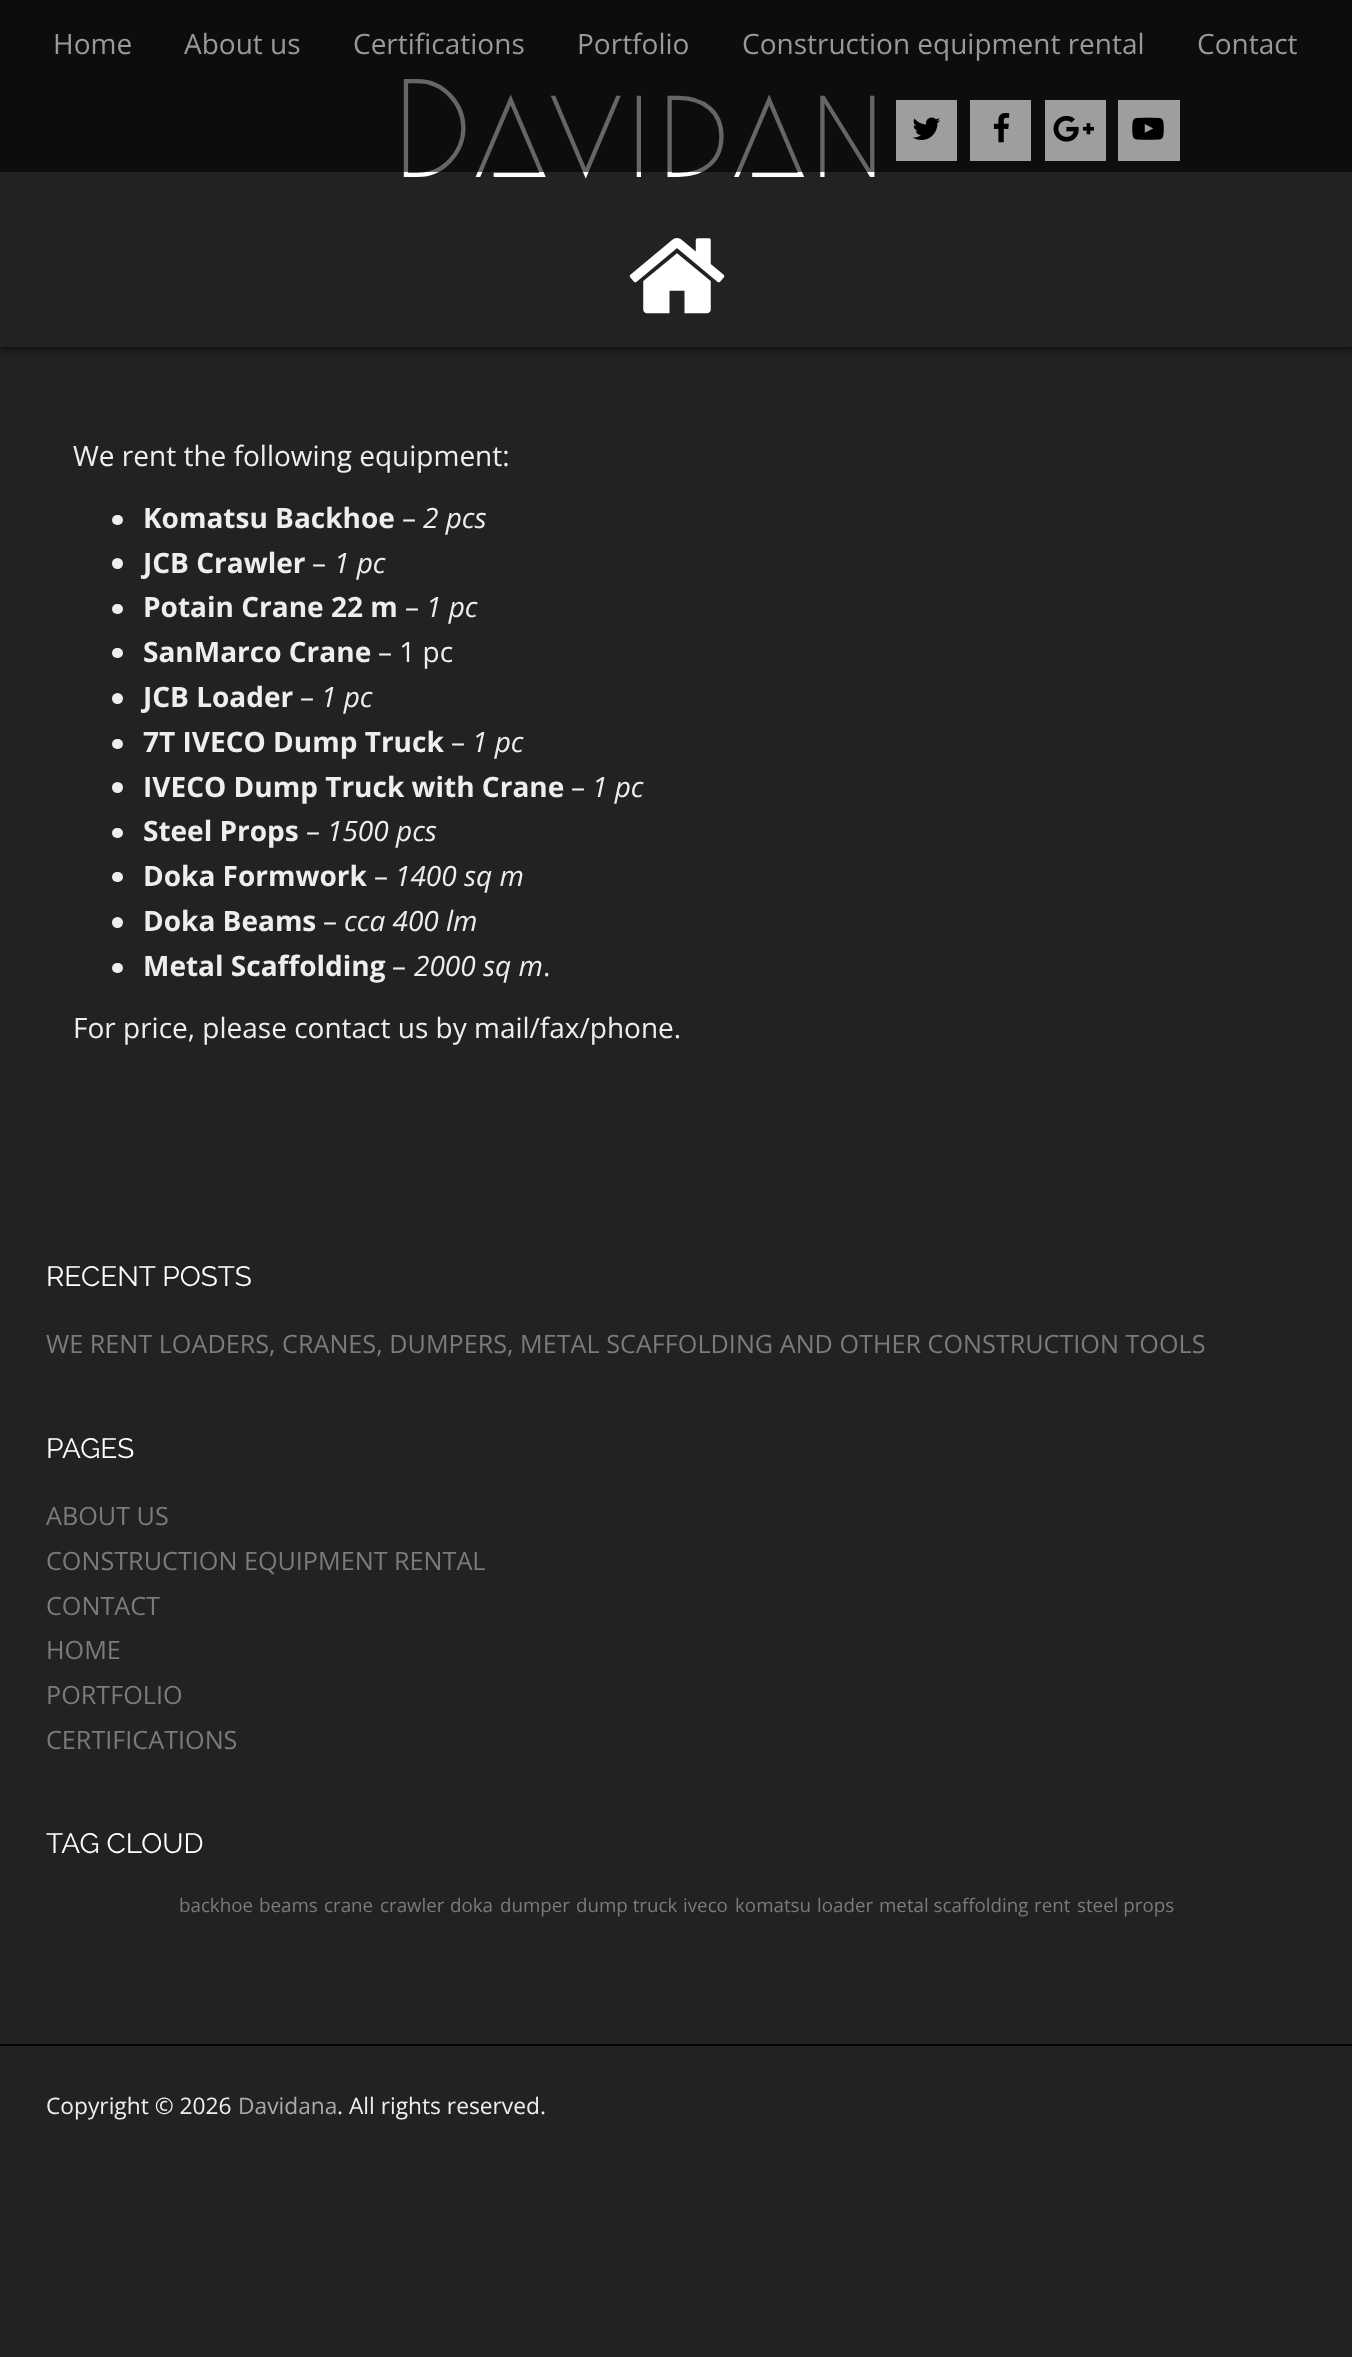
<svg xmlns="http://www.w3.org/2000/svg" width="1352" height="2357">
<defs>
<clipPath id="clip1"><path d="M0 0h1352v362h-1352zm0 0h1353v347h-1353z" clip-rule="evenodd"/></clipPath>
</defs>
<rect width="100%" height="100%" fill="#222"/>
<g clip-path="url(#clip1)">
<rect width="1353" height="347" fill="#000" filter="blur(4.5px)"/>
</g>
<text x="390" y="177" style="font-family:Megrim;font-size:140px;font-weight:500;fill:#fff">Davidan</text>
<rect width="1352" height="172" fill="#00000099"/>
<text x="53" y="54" style="font-family:Open Sans;font-size:28px;fill:#999">Home</text>
<text x="184" y="54" style="font-family:Open Sans;font-size:28px;fill:#999">About us</text>
<text x="353" y="54" style="font-family:Open Sans;font-size:28px;fill:#999">Certifications</text>
<text x="577" y="54" style="font-family:Open Sans;font-size:28px;fill:#999">Portfolio</text>
<text x="742" y="54" style="font-family:Open Sans;font-size:28px;fill:#999">Construction equipment rental</text>
<text x="1197" y="54" style="font-family:Open Sans;font-size:28px;fill:#999">Contact</text>
<rect x="896" y="100" width="61" height="61" fill="#ffffff99"/>
<image x="912" y="117" width="28" height="23" href="media/1.png"/>
<rect x="970" y="100" width="61" height="61" fill="#9e9e9e"/>
<image x="993" y="113" width="17" height="30" href="media/2.png"/>
<rect x="1045" y="100" width="61" height="61" fill="#9e9e9e"/>
<image x="1053" y="115" width="41" height="27" href="media/3.png"/>
<rect x="1118" y="100" width="62" height="61" fill="#9e9e9e"/>
<image x="1132" y="117" width="32" height="23" href="media/4.png"/>
<image x="629" y="238" width="96" height="76" href="media/5.png"/>
<text x="73" y="466" style="font-family:Open Sans;font-size:28px;fill:#eee">We rent the following equipment:</text>
<rect x="112" y="515" width="11" height="10" rx="5" fill="#eee"/>
<text x="143" y="528" style="font-family:Open Sans;font-size:28px;font-weight:bold;fill:#eee">Komatsu Backhoe</text>
<text x="402" y="528" style="font-family:Open Sans;font-size:28px;fill:#eee">–</text>
<text x="423" y="528" style="font-family:Open Sans;font-size:28px;font-style:italic;fill:#eee">2 pcs</text>
<circle cx="117.5" cy="563.5" r="5.5" fill="#eee"/>
<text x="143" y="573" style="font-family:Open Sans;font-size:28px;font-weight:bold;fill:#eee">JCB Crawler</text>
<text x="312" y="573" style="font-family:Open Sans;font-size:28px;fill:#eee">–</text>
<text x="334" y="573" style="font-family:Open Sans;font-size:28px;font-style:italic;fill:#eee">1 pc</text>
<rect x="112" y="604" width="11" height="10" rx="5" fill="#eee"/>
<text x="143" y="617" style="font-family:Open Sans;font-size:28px;font-weight:bold;fill:#eee">Potain Crane 22 m</text>
<text x="405" y="617" style="font-family:Open Sans;font-size:28px;fill:#eee">–</text>
<text x="426" y="617" style="font-family:Open Sans;font-size:28px;font-style:italic;fill:#eee">1 pc</text>
<rect x="112" y="648" width="11" height="10" rx="5" fill="#eee"/>
<text x="143" y="662" style="font-family:Open Sans;font-size:28px;font-weight:bold;fill:#eee">SanMarco Crane</text>
<text x="378" y="662" style="font-family:Open Sans;font-size:28px;fill:#eee">– 1 pc</text>
<circle cx="117.5" cy="698.5" r="5.5" fill="#eee"/>
<text x="143" y="707" style="font-family:Open Sans;font-size:28px;font-weight:bold;fill:#eee">JCB Loader</text>
<text x="300" y="707" style="font-family:Open Sans;font-size:28px;fill:#eee">–</text>
<text x="321" y="707" style="font-family:Open Sans;font-size:28px;font-style:italic;fill:#eee">1 pc</text>
<rect x="112" y="739" width="11" height="10" rx="5" fill="#eee"/>
<text x="143" y="752" style="font-family:Open Sans;font-size:28px;font-weight:bold;fill:#eee">7T IVECO Dump Truck</text>
<text x="451" y="752" style="font-family:Open Sans;font-size:28px;fill:#eee">–</text>
<text x="472" y="752" style="font-family:Open Sans;font-size:28px;font-style:italic;fill:#eee">1 pc</text>
<circle cx="117.5" cy="787.5" r="5.5" fill="#eee"/>
<text x="143" y="797" style="font-family:Open Sans;font-size:28px;font-weight:bold;fill:#eee">IVECO Dump Truck with Crane</text>
<text x="571" y="797" style="font-family:Open Sans;font-size:28px;fill:#eee">–</text>
<text x="592" y="797" style="font-family:Open Sans;font-size:28px;font-style:italic;fill:#eee">1 pc</text>
<rect x="112" y="828" width="11" height="10" rx="5" fill="#eee"/>
<text x="143" y="841" style="font-family:Open Sans;font-size:28px;font-weight:bold;fill:#eee">Steel Props</text>
<text x="306" y="841" style="font-family:Open Sans;font-size:28px;fill:#eee">–</text>
<text x="327" y="841" style="font-family:Open Sans;font-size:28px;font-style:italic;fill:#eee">1500 pcs</text>
<rect x="112" y="872" width="11" height="10" rx="5" fill="#eee"/>
<text x="143" y="886" style="font-family:Open Sans;font-size:28px;font-weight:bold;fill:#eee">Doka Formwork</text>
<text x="374" y="886" style="font-family:Open Sans;font-size:28px;fill:#eee">–</text>
<text x="395" y="886" style="font-family:Open Sans;font-size:28px;font-style:italic;fill:#eee">1400 sq m</text>
<circle cx="117.5" cy="922.5" r="5.5" fill="#eee"/>
<text x="143" y="931" style="font-family:Open Sans;font-size:28px;font-weight:bold;fill:#eee">Doka Beams</text>
<text x="323" y="931" style="font-family:Open Sans;font-size:28px;fill:#eee">–</text>
<text x="344" y="931" style="font-family:Open Sans;font-size:28px;font-style:italic;fill:#eee">cca 400 lm</text>
<rect x="112" y="963" width="11" height="10" rx="5" fill="#eee"/>
<text x="143" y="976" style="font-family:Open Sans;font-size:28px;font-weight:bold;fill:#eee">Metal Scaffolding</text>
<text x="392" y="976" style="font-family:Open Sans;font-size:28px;fill:#eee">–</text>
<text x="414" y="976" style="font-family:Open Sans;font-size:28px;font-style:italic;fill:#eee">2000 sq m</text>
<text x="543" y="976" style="font-family:Open Sans;font-size:28px;fill:#eee">.</text>
<text x="73" y="1038" style="font-family:Open Sans;font-size:28px;fill:#eee">For price, please contact us by mail/fax/phone.</text>
<text x="46" y="1286" style="font-family:Raleway;font-size:28px;font-weight:100;fill:#fff">RECENT POSTS</text>
<text x="46" y="1353" style="font-family:Open Sans;font-size:25.2px;fill:#7b7b7b">WE RENT LOADERS, CRANES, DUMPERS, METAL SCAFFOLDING AND OTHER CONSTRUCTION TOOLS</text>
<text x="46" y="1458" style="font-family:Raleway;font-size:28px;font-weight:100;fill:#fff">PAGES</text>
<text x="46" y="1525" style="font-family:Open Sans;font-size:25.2px;fill:#7b7b7b">ABOUT US</text>
<text x="46" y="1570" style="font-family:Open Sans;font-size:25.2px;fill:#7b7b7b">CONSTRUCTION EQUIPMENT RENTAL</text>
<text x="46" y="1615" style="font-family:Open Sans;font-size:25.2px;fill:#7b7b7b">CONTACT</text>
<text x="46" y="1659" style="font-family:Open Sans;font-size:25.2px;fill:#7b7b7b">HOME</text>
<text x="46" y="1704" style="font-family:Open Sans;font-size:25.2px;fill:#7b7b7b">PORTFOLIO</text>
<text x="46" y="1749" style="font-family:Open Sans;font-size:25.2px;fill:#7b7b7b">CERTIFICATIONS</text>
<text x="46" y="1853" style="font-family:Raleway;font-size:28px;font-weight:100;fill:#fff">TAG CLOUD</text>
<text x="179" y="1912" style="font-family:Open Sans;font-size:18.75px;fill:#7b7b7b">backhoe</text>
<text x="259" y="1912" style="font-family:Open Sans;font-size:18.75px;fill:#7b7b7b">beams</text>
<text x="324" y="1912" style="font-family:Open Sans;font-size:18.75px;fill:#7b7b7b">crane</text>
<text x="380" y="1912" style="font-family:Open Sans;font-size:18.75px;fill:#7b7b7b">crawler</text>
<text x="450" y="1912" style="font-family:Open Sans;font-size:18.75px;fill:#7b7b7b">doka</text>
<text x="500" y="1912" style="font-family:Open Sans;font-size:18.75px;fill:#7b7b7b">dumper</text>
<text x="576" y="1912" style="font-family:Open Sans;font-size:18.75px;fill:#7b7b7b">dump truck</text>
<text x="683" y="1912" style="font-family:Open Sans;font-size:18.75px;fill:#7b7b7b">iveco</text>
<text x="735" y="1912" style="font-family:Open Sans;font-size:18.75px;fill:#7b7b7b">komatsu</text>
<text x="817" y="1912" style="font-family:Open Sans;font-size:18.75px;fill:#7b7b7b">loader</text>
<text x="879" y="1912" style="font-family:Open Sans;font-size:18.75px;fill:#7b7b7b">metal scaffolding</text>
<text x="1034" y="1912" style="font-family:Open Sans;font-size:18.75px;fill:#7b7b7b">rent</text>
<text x="1077" y="1912" style="font-family:Open Sans;font-size:18.75px;fill:#7b7b7b">steel props</text>
<rect y="2044" width="1352" height="2" fill="#000"/>
<text x="46" y="2114" style="font-family:Open Sans;font-size:22.75px;fill:#eee">Copyright © 2026</text>
<text x="238" y="2114" style="font-family:Open Sans;font-size:22.75px;fill:#aaa">Davidana</text>
<text x="337" y="2114" style="font-family:Open Sans;font-size:22.75px;fill:#eee">. All rights reserved.</text>
</svg>
